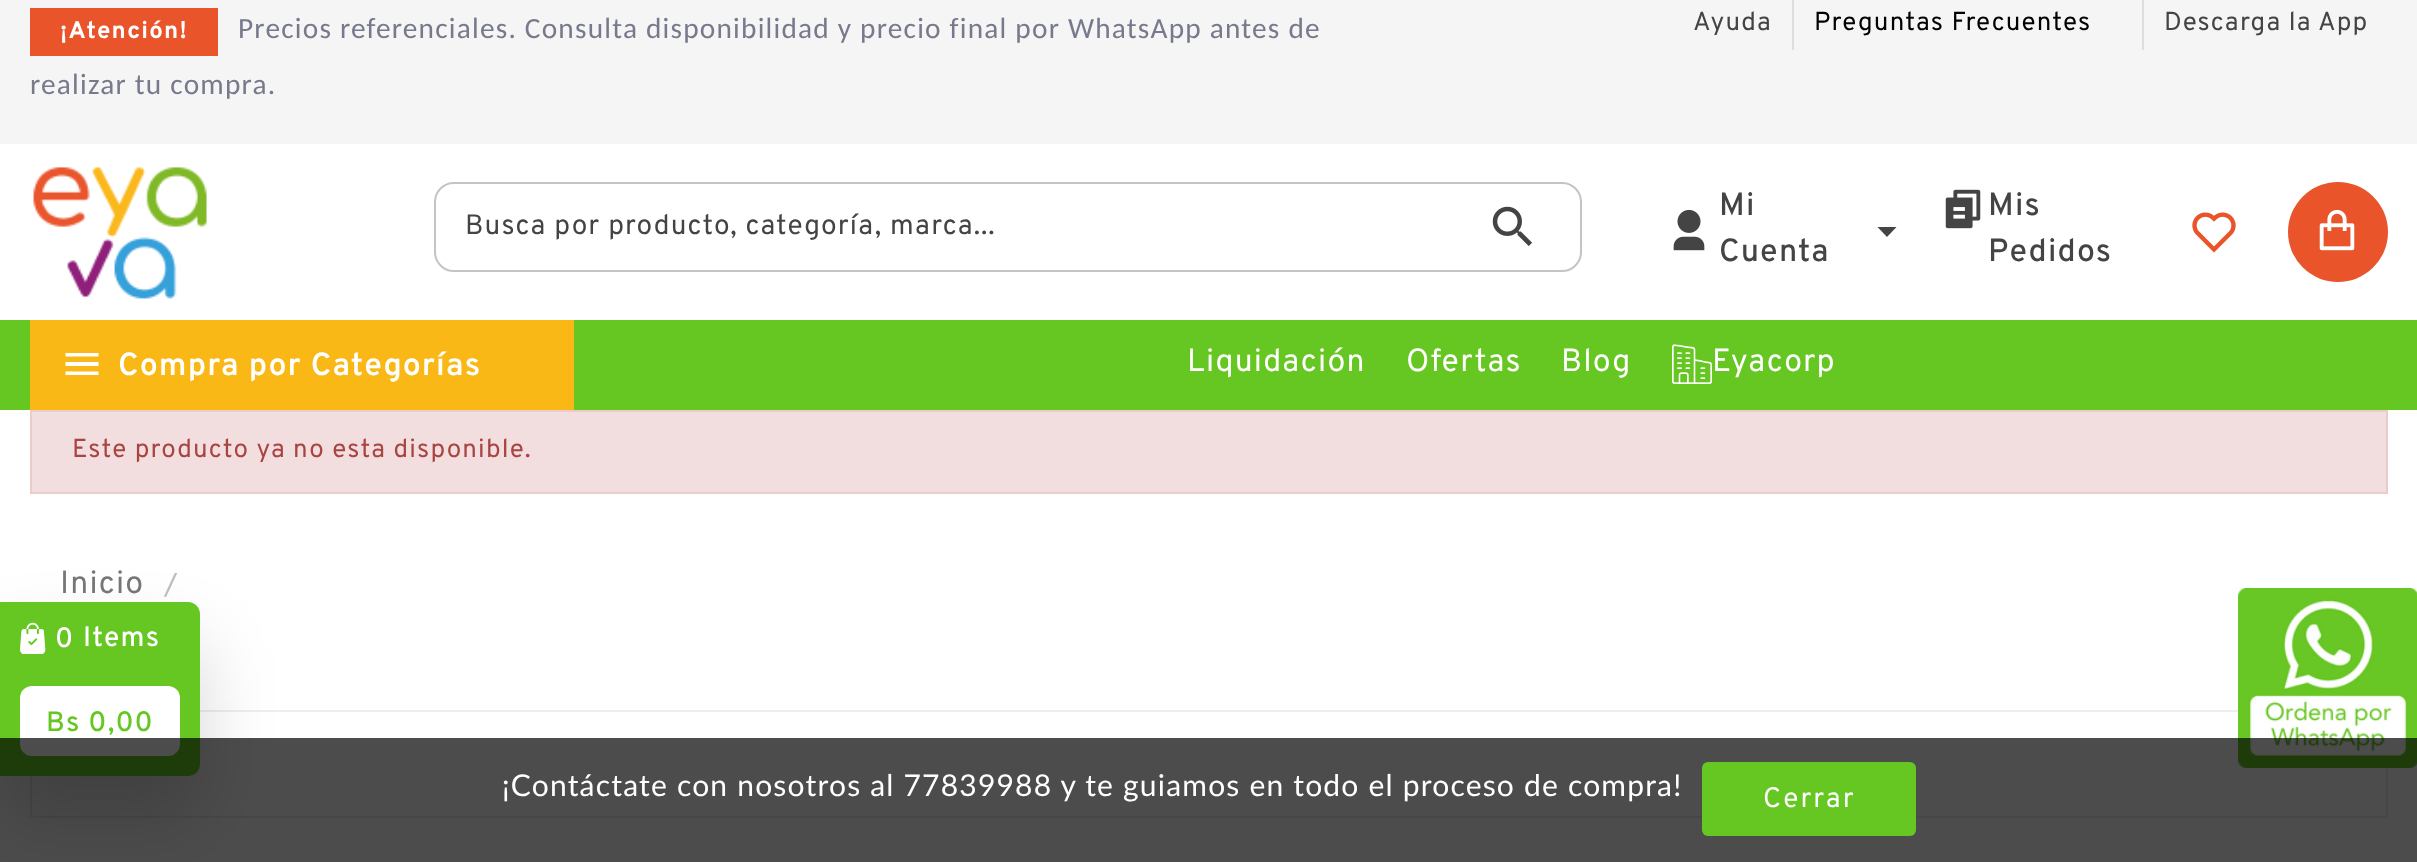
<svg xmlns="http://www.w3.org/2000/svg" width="2417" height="862">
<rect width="100%" height="100%" fill="#fff"/>
<rect width="2417" height="144" fill="#f5f5f5"/>
<rect x="30" y="8" width="188" height="48" fill="#e9542b"/>
<text x="60" y="38" style="font-family:Overpass;font-size:24px;font-weight:bold;letter-spacing:1.2px;fill:#fff">¡Atención!</text>
<text x="238" y="38" style="font-family:Carlito;font-size:29.35px;letter-spacing:1.2px;fill:#77798c">Precios referenciales. Consulta disponibilidad y precio final por WhatsApp antes de</text>
<text x="30" y="94" style="font-family:Carlito;font-size:29.35px;letter-spacing:1.2px;fill:#77798c">realizar tu compra.</text>
<text x="1693" y="30" style="font-family:Overpass;font-size:26px;letter-spacing:1.2px;fill:#444">Ayuda</text>
<rect x="2142" width="2" height="50" fill="#ddd"/>
<rect x="1792" width="2" height="50" fill="#ddd"/>
<text x="1814" y="30" style="font-family:Overpass;font-size:26px;letter-spacing:1.2px;fill:#010101">Preguntas Frecuentes</text>
<text x="2164" y="30" style="font-family:Overpass;font-size:26px;letter-spacing:1.2px;fill:#444">Descarga la App</text>
<image x="33" y="167" width="174" height="132" href="media/1.png"/>
<rect x="435" y="183" width="1146" height="88" rx="19" fill="none" stroke="#c4c4c4" stroke-width="2"/>
<text x="465" y="234" style="font-family:Overpass;font-size:28px;letter-spacing:1.2px;fill:#444">Busca por producto, categoría, marca...</text>
<image x="1492" y="206" width="40" height="40" href="media/2.png"/>
<image x="1673" y="209" width="32" height="42" href="media/3.png"/>
<text x="1719" y="215" style="font-family:Overpass;font-size:32px;font-weight:500;letter-spacing:1.2px;fill:#444">Mi</text>
<text x="1719" y="261" style="font-family:Overpass;font-size:32px;font-weight:500;letter-spacing:1.2px;fill:#444">Cuenta</text>
<path d="M1877.5 227h19l-9.5 10z" fill="#444"/>
<image x="1945" y="189" width="36" height="40" href="media/4.png"/>
<text x="1988" y="215" style="font-family:Overpass;font-size:32px;font-weight:500;letter-spacing:1.2px;fill:#444">Mis</text>
<text x="1988" y="261" style="font-family:Overpass;font-size:32px;font-weight:500;letter-spacing:1.2px;fill:#444">Pedidos</text>
<image x="2192" y="212" width="44" height="41" href="media/5.png"/>
<circle cx="2338" cy="232" r="50" fill="#e9542b"/>
<image x="2319" y="209" width="36" height="42" href="media/6.png"/>
<rect y="320" width="2417" height="90" fill="#67c722"/>
<rect x="30" y="320" width="544" height="90" fill="#fab816"/>
<path d="M65.5 353h33v3.5h-33zm0 13v-4h33v4zm0 9v-3.5h33v3.5z" fill="#fff"/>
<text x="118" y="375" style="font-family:Overpass;font-size:32px;font-weight:600;letter-spacing:1.2px;fill:#fff">Compra por Categorías</text>
<text x="1187" y="371" style="font-family:Overpass;font-size:32px;letter-spacing:1.2px;fill:#fff">Liquidación</text>
<text x="1406" y="371" style="font-family:Overpass;font-size:32px;letter-spacing:1.2px;fill:#fff">Ofertas</text>
<text x="1561" y="371" style="font-family:Overpass;font-size:32px;letter-spacing:1.2px;fill:#fff">Blog</text>
<image x="1672" y="344" width="40" height="40" href="media/7.png"/>
<text x="1712" y="371" style="font-family:Overpass;font-size:32px;letter-spacing:1.2px;fill:#fff">Eyacorp</text>
<rect x="31" y="711" width="2356" height="106" fill="none" stroke="#eee" stroke-width="2"/>
<rect y="644" width="200" height="174" rx="12" fill="#00000029" filter="blur(36px)"/>
<path d="M0 602h188c6.5 0 12 5.5 12 12v150c0 6.5-5.5 12-12 12h-188z" fill="#67c722"/>
<image x="20" y="622" width="26" height="32" href="media/8.png"/>
<text x="55" y="647" style="font-family:Overpass;font-size:28px;font-weight:500;letter-spacing:1.2px;fill:#fff">0</text>
<text x="83" y="646" style="font-family:Overpass;font-size:28px;font-weight:500;letter-spacing:1.2px;fill:#fff">Items</text>
<rect x="20" y="686" width="160" height="70" rx="12" fill="#fff"/>
<text x="46" y="731" style="font-family:Overpass;font-size:28px;font-weight:500;letter-spacing:1.2px;fill:#67c722">Bs 0,00</text>
<image x="2238" y="588" width="179" height="180" href="media/9.png"/>
<rect x="31" y="411" width="2356" height="82" fill="#f2dede" stroke="#ebcccc" stroke-width="2"/>
<text x="72" y="457" style="font-family:Overpass;font-size:26px;letter-spacing:1.2px;fill:#a94442">Este producto ya no esta disponible.</text>
<text x="60" y="593" style="font-family:Overpass;font-size:32px;letter-spacing:1.2px;fill:#767676">Inicio</text>
<text x="164" y="593" style="font-family:Overpass;font-size:28px;letter-spacing:1.2px;fill:#bdbdbd">/</text>
<rect y="738" width="2417" height="124" fill="#000000b3"/>
<text x="502" y="796" style="font-family:Lato;font-size:30px;letter-spacing:1.2px;fill:#fff">¡Contáctate con nosotros al 77839988 y te guiamos en todo el proceso de compra!</text>
<rect x="1702" y="762" width="214" height="74" rx="6" fill="#67c722"/>
<text x="1763" y="807" style="font-family:Overpass;font-size:28px;letter-spacing:2px;fill:#fff">Cerrar</text>
</svg>
